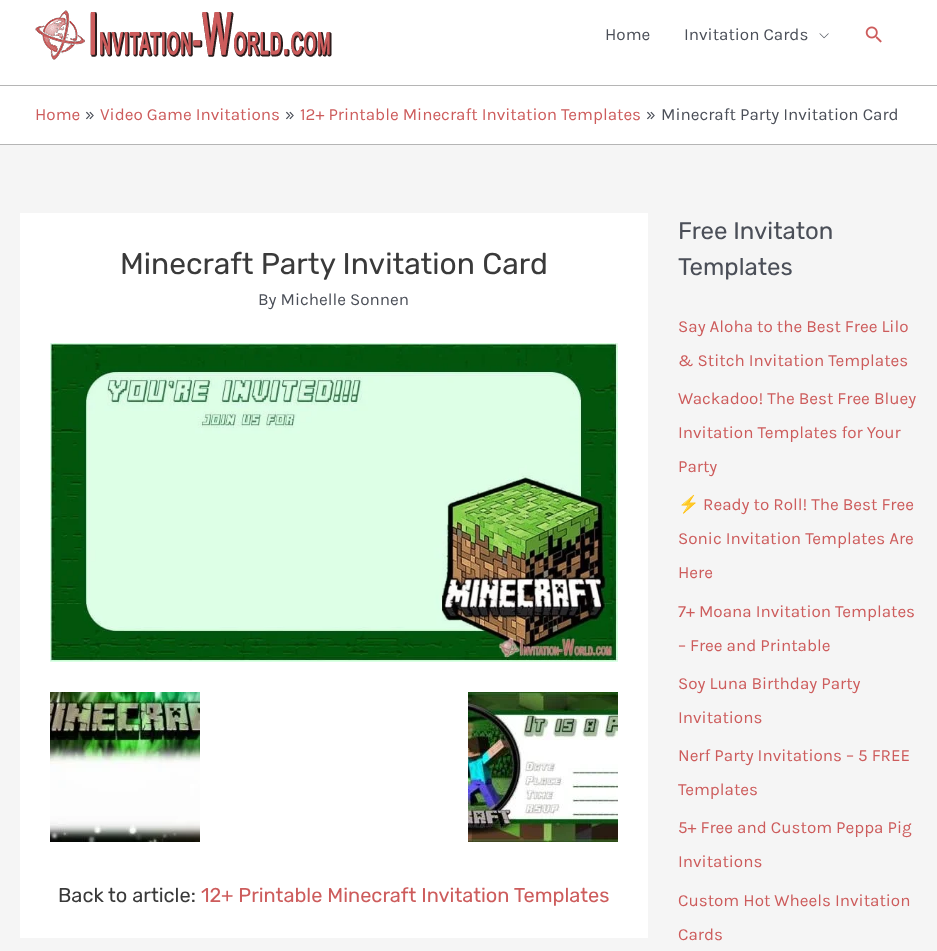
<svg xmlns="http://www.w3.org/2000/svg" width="937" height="951">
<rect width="100%" height="100%" fill="#f5f5f5"/>
<rect width="937" height="85" fill="#fff"/>
<rect y="85" width="937" height="1" fill="#b5b5b5"/>
<image x="35" y="10" width="297" height="50" href="media/1.png"/>
<text x="605" y="40" style="font-family:Karla;font-size:17px;fill:#4b4f58">Home</text>
<text x="684" y="40" style="font-family:Karla;font-size:17px;fill:#4b4f58">Invitation Cards</text>
<image x="819" y="33" width="10" height="6" href="media/2.png"/>
<image x="865" y="26" width="17" height="17" href="media/3.png"/>
<rect y="86" width="937" height="58" fill="#fff"/>
<rect y="144" width="937" height="1" fill="#b5b5b5"/>
<text x="35" y="120" style="font-family:Karla;font-size:17px;fill:#cd5c5c">Home</text>
<text x="85" y="120" style="font-family:Karla;font-size:17px;fill:#4b4f58">»</text>
<text x="100" y="120" style="font-family:Karla;font-size:17px;fill:#cd5c5c">Video Game Invitations</text>
<text x="285" y="120" style="font-family:Karla;font-size:17px;fill:#4b4f58">»</text>
<text x="300" y="120" style="font-family:Karla;font-size:17px;fill:#cd5c5c">12+ Printable Minecraft Invitation Templates</text>
<text x="646" y="120" style="font-family:Karla;font-size:17px;fill:#4b4f58">»</text>
<text x="661" y="120" style="font-family:Karla;font-size:17px;fill:#4b4f58">Minecraft Party Invitation Card</text>
<rect x="20" y="213" width="628" height="725" fill="#fff"/>
<text x="120" y="274" style="font-family:Rubik;font-size:30px;fill:#3a3a3a">Minecraft Party Invitation Card</text>
<text x="258" y="305" style="font-family:Karla;font-size:17px;fill:#4b4f58">By Michelle Sonnen</text>
<image x="50" y="343" width="568" height="319" href="media/4.png"/>
<image x="50" y="692" width="150" height="150" href="media/5.png"/>
<image x="468" y="692" width="150" height="150" href="media/6.png"/>
<text x="58" y="902" style="font-family:Rubik;font-size:20px;fill:#3a3a3a">Back to article:</text>
<text x="201" y="902" style="font-family:Rubik;font-size:20px;fill:#cd5c5c">12+ Printable Minecraft Invitation Templates</text>
<text x="678" y="239" style="font-family:Rubik;font-size:24px;fill:#4b4f58">Free Invitaton</text>
<text x="678" y="275" style="font-family:Rubik;font-size:24px;fill:#4b4f58">Templates</text>
<text x="678" y="332" style="font-family:Karla;font-size:17px;fill:#cd5c5c">Say Aloha to the Best Free Lilo</text>
<text x="678" y="366" style="font-family:Karla;font-size:17px;fill:#cd5c5c">&amp; Stitch Invitation Templates</text>
<text x="678" y="404" style="font-family:Karla;font-size:17px;fill:#cd5c5c">Wackadoo! The Best Free Bluey</text>
<text x="678" y="438" style="font-family:Karla;font-size:17px;fill:#cd5c5c">Invitation Templates for Your</text>
<text x="678" y="472" style="font-family:Karla;font-size:17px;fill:#cd5c5c">Party</text>
<text x="678" y="510" style="font-family:Noto Color Emoji;font-size:17px;fill:#cd5c5c">⚡️</text>
<text x="703" y="510" style="font-family:Karla;font-size:17px;fill:#cd5c5c">Ready to Roll! The Best Free</text>
<text x="678" y="544" style="font-family:Karla;font-size:17px;fill:#cd5c5c">Sonic Invitation Templates Are</text>
<text x="678" y="578" style="font-family:Karla;font-size:17px;fill:#cd5c5c">Here</text>
<text x="678" y="617" style="font-family:Karla;font-size:17px;fill:#cd5c5c">7+ Moana Invitation Templates</text>
<text x="678" y="651" style="font-family:Karla;font-size:17px;fill:#cd5c5c">– Free and Printable</text>
<text x="678" y="689" style="font-family:Karla;font-size:17px;fill:#cd5c5c">Soy Luna Birthday Party</text>
<text x="678" y="723" style="font-family:Karla;font-size:17px;fill:#cd5c5c">Invitations</text>
<text x="678" y="761" style="font-family:Karla;font-size:17px;fill:#cd5c5c">Nerf Party Invitations – 5 FREE</text>
<text x="678" y="795" style="font-family:Karla;font-size:17px;fill:#cd5c5c">Templates</text>
<text x="678" y="833" style="font-family:Karla;font-size:17px;fill:#cd5c5c">5+ Free and Custom Peppa Pig</text>
<text x="678" y="867" style="font-family:Karla;font-size:17px;fill:#cd5c5c">Invitations</text>
<text x="678" y="906" style="font-family:Karla;font-size:17px;fill:#cd5c5c">Custom Hot Wheels Invitation</text>
<text x="678" y="940" style="font-family:Karla;font-size:17px;fill:#cd5c5c">Cards</text>
</svg>
